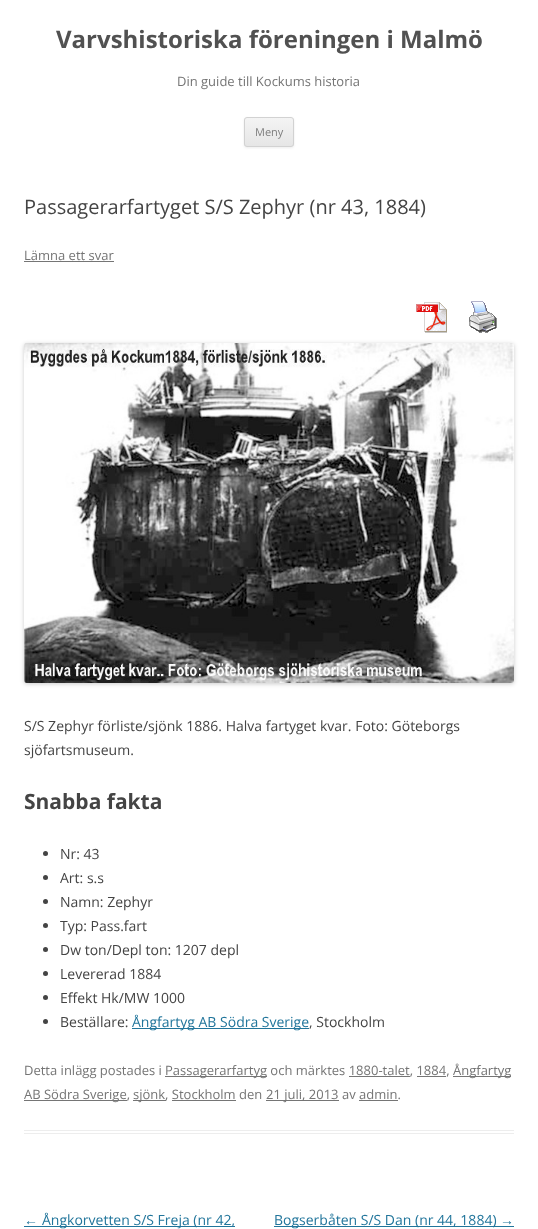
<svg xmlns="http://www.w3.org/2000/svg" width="538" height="1229">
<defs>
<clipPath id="clip1"><rect x="244" y="117" width="50" height="30" rx="3"/></clipPath>
<linearGradient id="g1" gradientUnits="userSpaceOnUse" x1="269" y1="118" x2="269" y2="146"><stop offset="0" stop-color="#f4f4f4"/><stop offset="1" stop-color="#e6e6e6"/></linearGradient>
</defs>
<rect width="100%" height="100%" fill="#fff"/>
<text x="56" y="48" style="font-family:Open Sans;font-size:24px;font-weight:bold;fill:#515151">Varvshistoriska föreningen i Malmö</text>
<text x="177" y="86" style="font-family:Open Sans;font-size:13px;fill:#757575">Din guide till Kockums historia</text>
<rect x="244" y="118" width="50" height="30" rx="3" fill="#4040401a" filter="blur(1px)"/>
<g clip-path="url(#clip1)">
<rect x="244" y="118" width="50" height="28" fill="url(#g1)"/>
</g>
<rect x="244.5" y="117.5" width="49" height="29" rx="2.5" fill="none" stroke="#d2d2d2"/>
<text x="255" y="136" style="font-family:Open Sans;font-size:11px;fill:#7c7c7c">Meny</text>
<rect x="24" y="1130" width="490" height="1" fill="#ededed"/>
<rect x="24" y="1133" width="490" height="1" fill="#ededed"/>
<text x="24" y="214" style="font-family:Open Sans;font-size:20px;fill:#444">Passagerarfartyget S/S Zephyr (nr 43, 1884)</text>
<text x="24" y="260" style="font-family:Open Sans;font-size:13px;fill:#757575">Lämna ett svar</text>
<rect x="24" y="261" width="90" height="1" fill="#757575"/>
<image x="416" y="302" width="31" height="31" href="media/1.png"/>
<image x="469" y="301" width="28" height="32" href="media/2.png"/>
<rect x="24" y="344" width="490" height="340" rx="3" fill="#00000033" filter="blur(2px)"/>
<image x="24" y="343" width="490" height="340" href="media/3.png"/>
<text x="24" y="731" style="font-family:Open Sans;font-size:14px;fill:#444">S/S Zephyr förliste/sjönk 1886. Halva fartyget kvar. Foto: Göteborgs</text>
<text x="24" y="755" style="font-family:Open Sans;font-size:14px;fill:#444">sjöfartsmuseum.</text>
<text x="24" y="809" style="font-family:Open Sans;font-size:21px;font-weight:bold;fill:#444">Snabba fakta</text>
<circle cx="45.5" cy="853.5" r="2.5" fill="#444"/>
<text x="60" y="859" style="font-family:Open Sans;font-size:14px;fill:#444">Nr: 43</text>
<circle cx="45.5" cy="877.5" r="2.5" fill="#444"/>
<text x="60" y="883" style="font-family:Open Sans;font-size:14px;fill:#444">Art: s.s</text>
<circle cx="45.5" cy="901.5" r="2.5" fill="#444"/>
<text x="60" y="907" style="font-family:Open Sans;font-size:14px;fill:#444">Namn: Zephyr</text>
<circle cx="45.5" cy="925.5" r="2.5" fill="#444"/>
<text x="60" y="931" style="font-family:Open Sans;font-size:14px;fill:#444">Typ: Pass.fart</text>
<circle cx="45.5" cy="949.5" r="2.5" fill="#444"/>
<text x="60" y="955" style="font-family:Open Sans;font-size:14px;fill:#444">Dw ton/Depl ton: 1207 depl</text>
<circle cx="45.5" cy="973.5" r="2.5" fill="#444"/>
<text x="60" y="979" style="font-family:Open Sans;font-size:14px;fill:#444">Levererad 1884</text>
<circle cx="45.5" cy="997.5" r="2.5" fill="#444"/>
<text x="60" y="1003" style="font-family:Open Sans;font-size:14px;fill:#444">Effekt Hk/MW 1000</text>
<circle cx="45.5" cy="1021.5" r="2.5" fill="#444"/>
<text x="60" y="1027" style="font-family:Open Sans;font-size:14px;fill:#444">Beställare:</text>
<rect x="132" y="1028" width="177" height="1" fill="#21759b"/>
<text x="132" y="1027" style="font-family:Open Sans;font-size:14px;fill:#21759b">Ångfartyg AB Södra Sverige</text>
<text x="309" y="1027" style="font-family:Open Sans;font-size:14px;fill:#444">, Stockholm</text>
<text x="24" y="1075" style="font-family:Open Sans;font-size:13px;fill:#757575">Detta inlägg postades i</text>
<rect x="165" y="1076" width="102" height="1" fill="#757575"/>
<text x="165" y="1075" style="font-family:Open Sans;font-size:13px;fill:#757575">Passagerarfartyg och märktes 1880-talet, 1884,</text>
<rect x="453" y="1076" width="58" height="1" fill="#757575"/>
<text x="453" y="1075" style="font-family:Open Sans;font-size:13px;fill:#757575">Ångfartyg</text>
<rect x="349" y="1076" width="61" height="1" fill="#757575"/>
<rect x="417" y="1076" width="29" height="1" fill="#757575"/>
<rect x="24" y="1100" width="103" height="1" fill="#757575"/>
<text x="24" y="1099" style="font-family:Open Sans;font-size:13px;fill:#757575">AB Södra Sverige,</text>
<rect x="133" y="1100" width="33" height="1" fill="#757575"/>
<text x="133" y="1099" style="font-family:Open Sans;font-size:13px;fill:#757575">sjönk, Stockholm den</text>
<rect x="266" y="1100" width="73" height="1" fill="#757575"/>
<text x="266" y="1099" style="font-family:Open Sans;font-size:13px;fill:#757575">21 juli, 2013 av admin.</text>
<rect x="172" y="1100" width="64" height="1" fill="#757575"/>
<rect x="359" y="1100" width="39" height="1" fill="#757575"/>
<text x="24" y="1225" style="font-family:Liberation Sans;font-size:14px;fill:#21759b">←</text>
<rect x="24" y="1226" width="211" height="1" fill="#21759b"/>
<text x="42" y="1225" style="font-family:Open Sans;font-size:14px;fill:#21759b">Ångkorvetten S/S Freja (nr 42,</text>
<rect x="274" y="1226" width="240" height="1" fill="#21759b"/>
<text x="274" y="1225" style="font-family:Open Sans;font-size:14px;fill:#21759b">Bogserbåten S/S Dan (nr 44, 1884)</text>
<text x="500" y="1225" style="font-family:Liberation Sans;font-size:14px;fill:#21759b">→</text>
</svg>
